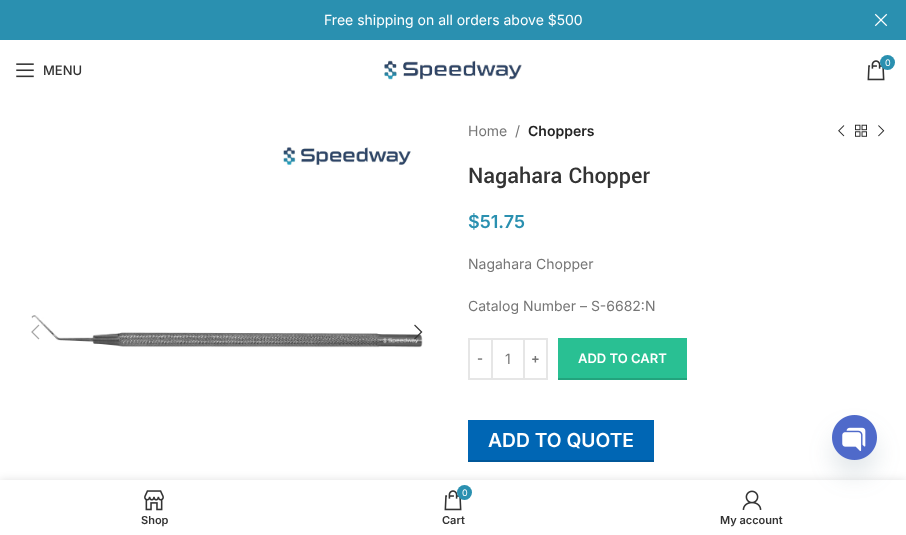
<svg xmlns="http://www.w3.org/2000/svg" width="906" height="535">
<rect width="100%" height="100%" fill="#fff"/>
<rect width="906" height="40" fill="#2a90b0"/>
<text x="324" y="25" style="font-family:Inter;font-size:14px;fill:#fff">Free shipping on all orders above $500</text>
<image x="874" y="13" width="14" height="14" href="media/1.png"/>
<image x="16" y="63" width="18" height="15" href="media/2.png"/>
<text x="43" y="75" style="font-family:Inter;font-size:13px;font-weight:500;fill:#333">MENU</text>
<image x="384" y="60" width="138" height="20" href="media/3.png"/>
<image x="867" y="60" width="18" height="21" href="media/4.png"/>
<circle cx="887.5" cy="62.5" r="7.5" fill="#2a90b0"/>
<text x="885" y="66" style="font-family:Inter;font-size:9px;fill:#fff">0</text>
<image x="31" y="147" width="392" height="201" href="media/5.png"/>
<image x="31" y="324" width="9" height="16" href="media/6.png"/>
<image x="414" y="324" width="9" height="16" href="media/7.png"/>
<text x="468" y="136" style="font-family:Inter;font-size:14px;fill:#767676">Home</text>
<text x="515" y="136" style="font-family:Inter;font-size:14px;fill:#767676">/</text>
<text x="528" y="136" style="font-family:Inter;font-size:14px;font-weight:600;fill:#242424">Choppers</text>
<image x="838" y="125" width="7" height="12" href="media/8.png"/>
<image x="855" y="124" width="12" height="13" href="media/9.png"/>
<image x="878" y="125" width="7" height="12" href="media/10.png"/>
<text x="468" y="183" style="font-family:Yantramanav;font-size:24px;font-weight:500;fill:#333">Nagahara Chopper</text>
<text x="468" y="228" style="font-family:Inter;font-size:18px;font-weight:600;fill:#2a90b0">$51.75</text>
<text x="468" y="269" style="font-family:Inter;font-size:14px;fill:#767676">Nagahara Chopper</text>
<text x="468" y="311" style="font-family:Inter;font-size:14px;fill:#767676">Catalog Number – S-6682:N</text>
<rect x="469" y="339" width="23" height="40" fill="none" stroke="#e6e6e6" stroke-width="2"/>
<text x="477" y="363" style="font-family:Inter;font-size:13px;font-weight:600;fill:#767676">-</text>
<rect x="493" y="338" width="30" height="2" fill="#e6e6e6"/>
<rect x="493" y="378" width="30" height="2" fill="#e6e6e6"/>
<text x="505" y="364" style="font-family:Inter;font-size:14px;fill:#767676">1</text>
<rect x="524" y="339" width="23" height="40" fill="none" stroke="#e6e6e6" stroke-width="2"/>
<text x="531" y="363" style="font-family:Inter;font-size:13px;font-weight:600;fill:#767676">+</text>
<rect x="558" y="338" width="129" height="40" fill="#29c093"/>
<rect x="558" y="378" width="129" height="2" fill="#23a37d"/>
<text x="578" y="363" style="font-family:Inter;font-size:13px;font-weight:600;fill:#fff">ADD TO CART</text>
<rect x="468" y="420" width="186" height="40" fill="#0066b4"/>
<rect x="468" y="460" width="186" height="2" fill="#005799"/>
<text x="488" y="447" style="font-family:Inter;font-size:19.25px;font-weight:600;fill:#fff">ADD TO QUOTE</text>
<rect y="480" width="906" height="55" fill="#0000001f" filter="blur(4.5px)"/>
<rect y="480" width="906" height="55" fill="#fff"/>
<image x="144" y="490" width="20" height="21" href="media/11.png"/>
<text x="141" y="524" style="font-family:Inter;font-size:11px;font-weight:600;fill:#333">Shop</text>
<image x="444" y="490" width="18" height="21" href="media/4.png"/>
<circle cx="464.5" cy="492.5" r="7.5" fill="#2a90b0"/>
<text x="462" y="496" style="font-family:Inter;font-size:9px;fill:#fff">0</text>
<text x="442" y="524" style="font-family:Inter;font-size:11px;font-weight:600;fill:#333">Cart</text>
<image x="742" y="490" width="20" height="20" href="media/12.png"/>
<text x="720" y="524" style="font-family:Inter;font-size:11px;font-weight:600;fill:#333">My account</text>
<rect x="832" y="431" width="45" height="45" rx="22.5" fill="#49687e29" filter="blur(12px)"/>
<image x="832" y="415" width="45" height="45" href="media/13.png"/>
</svg>
